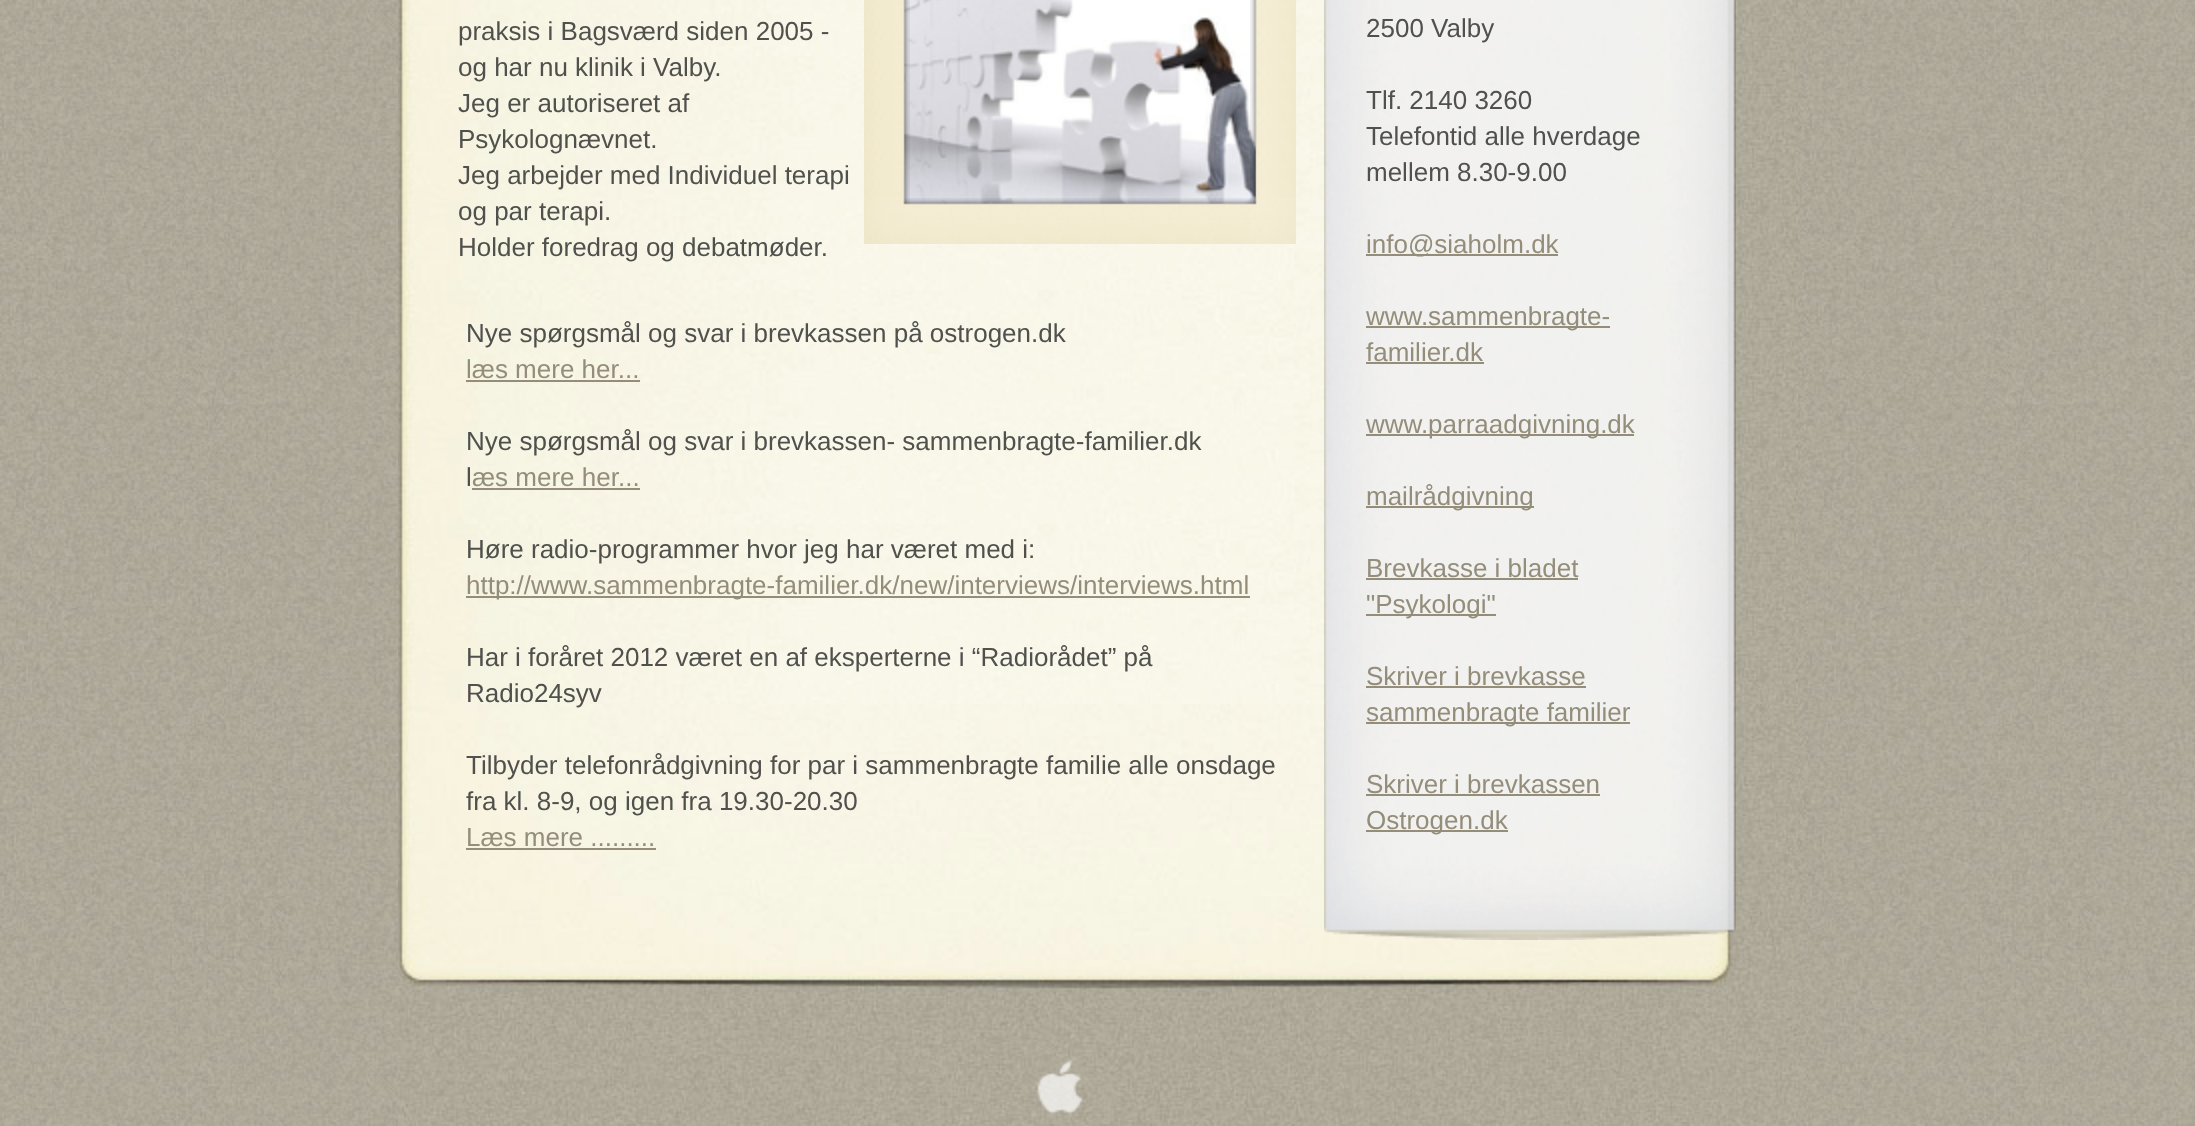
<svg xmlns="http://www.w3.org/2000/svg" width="2195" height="1126">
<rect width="100%" height="100%" fill="#fff"/>
<image x="0" y="0" width="2195" height="1126" href="media/1.png"/>
<image x="398" y="0" width="1400" height="704" href="media/2.png"/>
<text x="458" y="40" style="font-family:Liberation Sans;font-size:26px;fill:#50504d">praksis i Bagsværd siden 2005 -</text>
<text x="458" y="76" style="font-family:Liberation Sans;font-size:26px;fill:#50504d">og har nu klinik i Valby.</text>
<text x="458" y="112" style="font-family:Liberation Sans;font-size:26px;fill:#50504d">Jeg er autoriseret af</text>
<text x="458" y="148" style="font-family:Liberation Sans;font-size:26px;fill:#50504d">Psykolognævnet.</text>
<text x="458" y="184" style="font-family:Liberation Sans;font-size:26px;fill:#50504d">Jeg arbejder med Individuel terapi</text>
<text x="458" y="220" style="font-family:Liberation Sans;font-size:26px;fill:#50504d">og par terapi.</text>
<text x="458" y="256" style="font-family:Liberation Sans;font-size:26px;fill:#50504d">Holder foredrag og debatmøder.</text>
<image x="904" y="0" width="352" height="204" href="media/26.png"/>
<image x="864" y="0" width="46" height="8" href="media/3.png"/>
<image x="864" y="8" width="46" height="40" href="media/4.png"/>
<image x="864" y="48" width="46" height="40" href="media/5.png"/>
<image x="864" y="88" width="46" height="40" href="media/6.png"/>
<image x="864" y="128" width="46" height="40" href="media/7.png"/>
<image x="864" y="168" width="46" height="30" href="media/8.png"/>
<image x="1250" y="0" width="46" height="8" href="media/9.png"/>
<image x="1250" y="8" width="46" height="40" href="media/10.png"/>
<image x="1250" y="48" width="46" height="40" href="media/11.png"/>
<image x="1250" y="88" width="46" height="40" href="media/12.png"/>
<image x="1250" y="128" width="46" height="40" href="media/13.png"/>
<image x="1250" y="168" width="46" height="30" href="media/14.png"/>
<image x="864" y="198" width="46" height="46" href="media/15.png"/>
<image x="910" y="198" width="38" height="46" href="media/16.png"/>
<image x="948" y="198" width="38" height="46" href="media/17.png"/>
<image x="986" y="198" width="38" height="46" href="media/18.png"/>
<image x="1024" y="198" width="38" height="46" href="media/19.png"/>
<image x="1062" y="198" width="38" height="46" href="media/20.png"/>
<image x="1100" y="198" width="38" height="46" href="media/21.png"/>
<image x="1138" y="198" width="38" height="46" href="media/22.png"/>
<image x="1176" y="198" width="38" height="46" href="media/23.png"/>
<image x="1214" y="198" width="36" height="46" href="media/24.png"/>
<image x="1250" y="198" width="46" height="46" href="media/25.png"/>
<image x="398" y="704" width="1400" height="422" href="media/33.png"/>
<image x="1344" y="0" width="372" height="900" href="media/27.png"/>
<image x="1324" y="0" width="20" height="900" href="media/28.png"/>
<image x="1716" y="0" width="20" height="900" href="media/29.png"/>
<image x="1324" y="900" width="20" height="35" href="media/30.png"/>
<image x="1344" y="900" width="372" height="40" href="media/31.png"/>
<image x="1716" y="900" width="20" height="35" href="media/32.png"/>
<text x="1366" y="37" style="font-family:Liberation Sans;font-size:26px;fill:#50504d">2500 Valby</text>
<text x="1366" y="109" style="font-family:Liberation Sans;font-size:26px;fill:#50504d">Tlf. 2140 3260</text>
<text x="1366" y="145" style="font-family:Liberation Sans;font-size:26px;fill:#50504d">Telefontid alle hverdage</text>
<text x="1366" y="181" style="font-family:Liberation Sans;font-size:26px;fill:#50504d">mellem 8.30-9.00</text>
<rect x="1366" y="254" width="192" height="2" fill="#938d7a"/>
<text x="1366" y="253" style="font-family:Liberation Sans;font-size:26px;fill:#938d7a">info@siaholm.dk</text>
<rect x="1366" y="326" width="244" height="2" fill="#938d7a"/>
<text x="1366" y="325" style="font-family:Liberation Sans;font-size:26px;fill:#938d7a">www.sammenbragte-</text>
<text x="1366" y="361" style="font-family:Liberation Sans;font-size:26px;fill:#938d7a">familier.dk</text>
<rect x="1366" y="362" width="118" height="2" fill="#938d7a"/>
<rect x="1366" y="434" width="268" height="2" fill="#938d7a"/>
<text x="1366" y="433" style="font-family:Liberation Sans;font-size:26px;fill:#938d7a">www.parraadgivning.dk</text>
<rect x="1366" y="506" width="168" height="2" fill="#938d7a"/>
<text x="1366" y="505" style="font-family:Liberation Sans;font-size:26px;fill:#938d7a">mailrådgivning</text>
<text x="1366" y="577" style="font-family:Liberation Sans;font-size:26px;fill:#938d7a">Brevkasse i bladet</text>
<rect x="1366" y="578" width="212" height="2" fill="#938d7a"/>
<rect x="1366" y="614" width="130" height="2" fill="#938d7a"/>
<text x="1366" y="613" style="font-family:Liberation Sans;font-size:26px;fill:#938d7a">"Psykologi"</text>
<text x="1366" y="685" style="font-family:Liberation Sans;font-size:26px;fill:#938d7a">Skriver i brevkasse</text>
<rect x="1366" y="686" width="220" height="2" fill="#938d7a"/>
<rect x="1366" y="722" width="264" height="2" fill="#938d7a"/>
<text x="1366" y="721" style="font-family:Liberation Sans;font-size:26px;fill:#938d7a">sammenbragte familier</text>
<text x="1366" y="793" style="font-family:Liberation Sans;font-size:26px;fill:#938d7a">Skriver i brevkassen</text>
<rect x="1366" y="794" width="234" height="2" fill="#938d7a"/>
<rect x="1366" y="830" width="142" height="2" fill="#938d7a"/>
<text x="1366" y="829" style="font-family:Liberation Sans;font-size:26px;fill:#938d7a">Ostrogen.dk</text>
<text x="466" y="342" style="font-family:Liberation Sans;font-size:26px;fill:#50504d">Nye spørgsmål og svar i brevkassen på ostrogen.dk</text>
<text x="466" y="378" style="font-family:Liberation Sans;font-size:26px;fill:#938d7a">læs mere her...</text>
<rect x="466" y="380" width="174" height="2" fill="#938d7a"/>
<text x="466" y="450" style="font-family:Liberation Sans;font-size:26px;fill:#50504d">Nye spørgsmål og svar i brevkassen- sammenbragte-familier.dk</text>
<text x="466" y="486" style="font-family:Liberation Sans;font-size:26px;fill:#50504d">l</text>
<text x="472" y="486" style="font-family:Liberation Sans;font-size:26px;fill:#938d7a">æs mere her...</text>
<rect x="472" y="488" width="168" height="2" fill="#938d7a"/>
<text x="466" y="558" style="font-family:Liberation Sans;font-size:26px;fill:#50504d">Høre radio-programmer hvor jeg har været med i:</text>
<rect x="466" y="596" width="784" height="2" fill="#938d7a"/>
<text x="466" y="594" style="font-family:Liberation Sans;font-size:26px;fill:#938d7a">http://www.sammenbragte-familier.dk/new/interviews/interviews.html</text>
<text x="466" y="666" style="font-family:Liberation Sans;font-size:26px;fill:#50504d">Har i foråret 2012 været en af eksperterne i “Radiorådet” på</text>
<text x="466" y="702" style="font-family:Liberation Sans;font-size:26px;fill:#50504d">Radio24syv</text>
<text x="466" y="774" style="font-family:Liberation Sans;font-size:26px;fill:#50504d">Tilbyder telefonrådgivning for par i sammenbragte familie alle onsdage</text>
<text x="466" y="810" style="font-family:Liberation Sans;font-size:26px;fill:#50504d">fra kl. 8-9, og igen fra 19.30-20.30</text>
<text x="466" y="846" style="font-family:Liberation Sans;font-size:26px;fill:#938d7a">Læs mere .........</text>
<rect x="466" y="848" width="190" height="2" fill="#938d7a"/>
<image x="1037" y="1059" width="52" height="67" href="media/34.png"/>
</svg>
